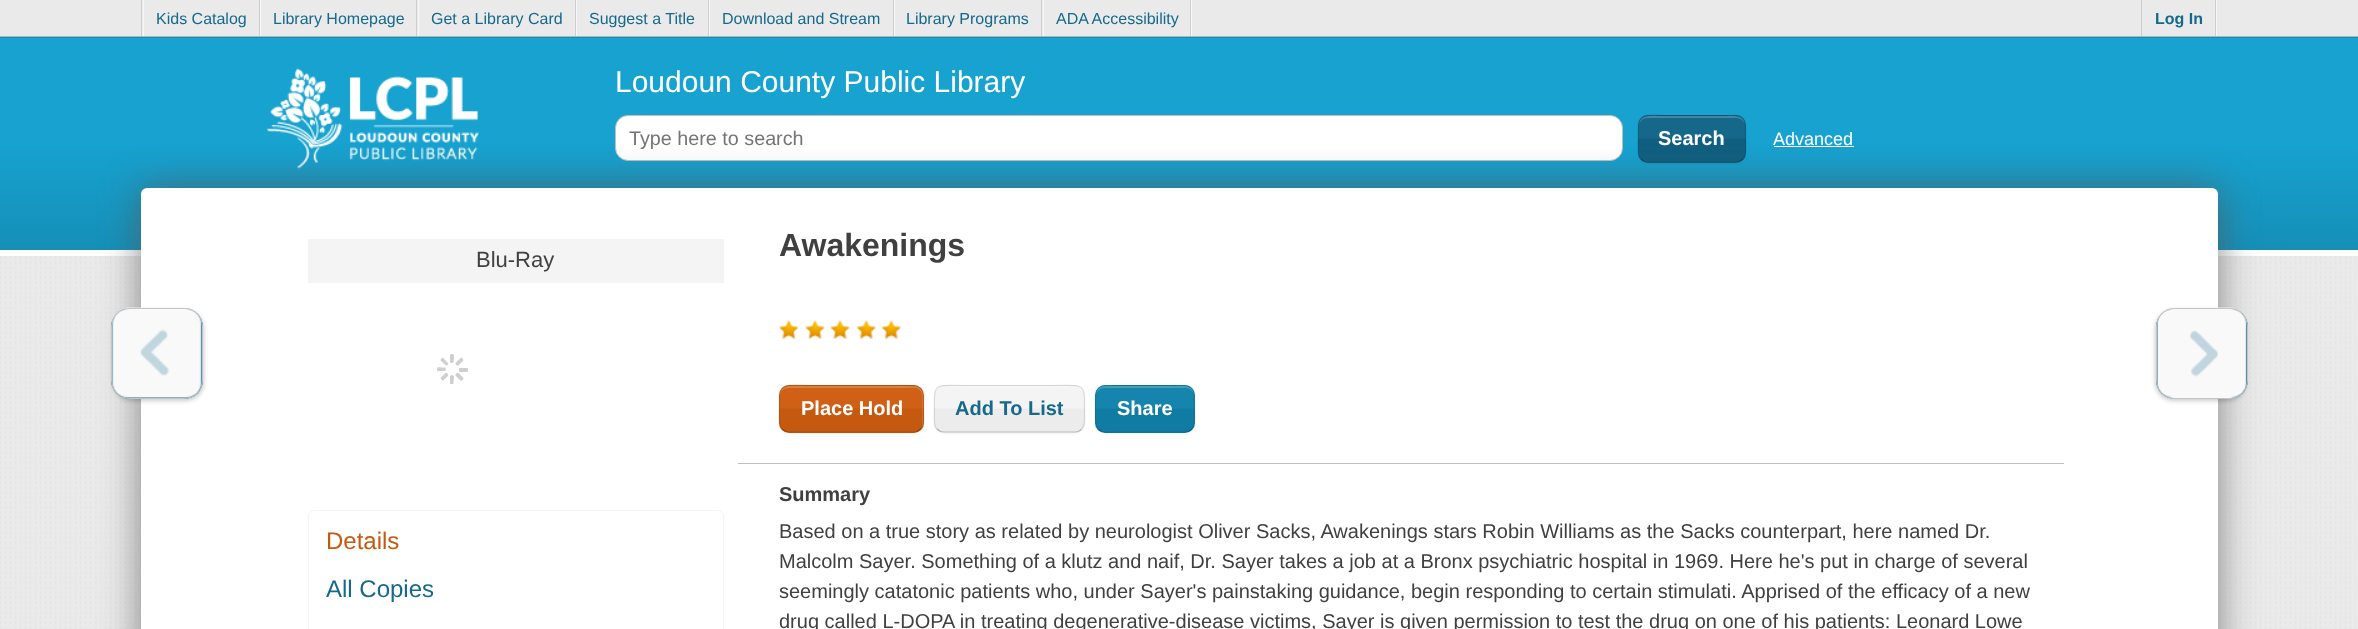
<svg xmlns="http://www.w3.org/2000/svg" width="2358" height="629">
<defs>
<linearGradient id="g1" gradientUnits="userSpaceOnUse" x1="1179" y1="37" x2="1179" y2="250"><stop offset="0.5" stop-color="#17a2d0"/><stop offset="1" stop-color="#158fb8"/></linearGradient>
<clipPath id="clip1"><rect x="1638" y="115" width="108" height="48" rx="10"/></clipPath>
<linearGradient id="g2" gradientUnits="userSpaceOnUse" x1="1692" y1="71" x2="1692" y2="116"><stop offset="0.48" stop-color="#15688a"/><stop offset="0.52" stop-color="#105f80"/></linearGradient>
<linearGradient id="g3" gradientUnits="userSpaceOnUse" x1="1692" y1="116" x2="1692" y2="161"><stop offset="0.48" stop-color="#15688a"/><stop offset="0.52" stop-color="#105f80"/></linearGradient>
<linearGradient id="g4" gradientUnits="userSpaceOnUse" x1="1692" y1="161" x2="1692" y2="206"><stop offset="0.48" stop-color="#15688a"/><stop offset="0.52" stop-color="#105f80"/></linearGradient>
<clipPath id="clip2"><rect x="779" y="385" width="145" height="48" rx="10"/></clipPath>
<linearGradient id="g5" gradientUnits="userSpaceOnUse" x1="851" y1="341" x2="851" y2="386"><stop offset="0.48" stop-color="#cf6015"/><stop offset="0.52" stop-color="#c5590f"/></linearGradient>
<linearGradient id="g6" gradientUnits="userSpaceOnUse" x1="851" y1="386" x2="851" y2="431"><stop offset="0.48" stop-color="#cf6015"/><stop offset="0.52" stop-color="#c5590f"/></linearGradient>
<linearGradient id="g7" gradientUnits="userSpaceOnUse" x1="851" y1="431" x2="851" y2="476"><stop offset="0.48" stop-color="#cf6015"/><stop offset="0.52" stop-color="#c5590f"/></linearGradient>
<clipPath id="clip3"><rect x="934" y="385" width="151" height="48" rx="10"/></clipPath>
<linearGradient id="g8" gradientUnits="userSpaceOnUse" x1="1009" y1="341" x2="1009" y2="386"><stop offset="0.48" stop-color="#f4f4f4"/><stop offset="0.52" stop-color="#edecec"/></linearGradient>
<linearGradient id="g9" gradientUnits="userSpaceOnUse" x1="1009" y1="386" x2="1009" y2="431"><stop offset="0.48" stop-color="#f4f4f4"/><stop offset="0.52" stop-color="#edecec"/></linearGradient>
<clipPath id="clip4"><rect x="1095" y="385" width="100" height="48" rx="10"/></clipPath>
<linearGradient id="g10" gradientUnits="userSpaceOnUse" x1="1145" y1="341" x2="1145" y2="386"><stop offset="0.48" stop-color="#1685ad"/><stop offset="0.52" stop-color="#117ca3"/></linearGradient>
<linearGradient id="g11" gradientUnits="userSpaceOnUse" x1="1145" y1="386" x2="1145" y2="431"><stop offset="0.48" stop-color="#1685ad"/><stop offset="0.52" stop-color="#117ca3"/></linearGradient>
<linearGradient id="g12" gradientUnits="userSpaceOnUse" x1="1145" y1="431" x2="1145" y2="476"><stop offset="0.48" stop-color="#1685ad"/><stop offset="0.52" stop-color="#117ca3"/></linearGradient>
</defs>
<rect width="100%" height="100%" fill="#eaeaea"/>
<rect x="141" width="1" height="36" fill="#cecece"/>
<rect x="260" width="1" height="36" fill="#f8f8f8"/>
<rect x="143" width="1" height="36" fill="#f8f8f8"/>
<rect x="259" width="1" height="36" fill="#cecece"/>
<text x="156" y="24" style="font-family:Liberation Sans;font-size:16px;fill:#15698c">Kids Catalog</text>
<rect x="418" width="1" height="36" fill="#f8f8f8"/>
<rect x="416" width="1" height="36" fill="#cecece"/>
<text x="273" y="24" style="font-family:Liberation Sans;font-size:16px;fill:#15698c">Library Homepage</text>
<rect x="576" width="1" height="36" fill="#f8f8f8"/>
<rect x="575" width="1" height="36" fill="#cecece"/>
<text x="431" y="24" style="font-family:Liberation Sans;font-size:16px;fill:#15698c">Get a Library Card</text>
<rect x="709" width="1" height="36" fill="#f8f8f8"/>
<rect x="708" width="1" height="36" fill="#cecece"/>
<text x="589" y="24" style="font-family:Liberation Sans;font-size:16px;fill:#15698c">Suggest a Title</text>
<rect x="894" width="1" height="36" fill="#f8f8f8"/>
<rect x="893" width="1" height="36" fill="#cecece"/>
<text x="722" y="24" style="font-family:Liberation Sans;font-size:16px;fill:#15698c">Download and Stream</text>
<rect x="1043" width="1" height="36" fill="#f8f8f8"/>
<rect x="1041" width="1" height="36" fill="#cecece"/>
<text x="906" y="24" style="font-family:Liberation Sans;font-size:16px;fill:#15698c">Library Programs</text>
<rect x="1191" width="1" height="36" fill="#f8f8f8"/>
<rect x="1190" width="1" height="36" fill="#cecece"/>
<text x="1056" y="24" style="font-family:Liberation Sans;font-size:16px;fill:#15698c">ADA Accessibility</text>
<rect x="2141" width="1" height="36" fill="#cecece"/>
<rect x="2216" width="1" height="36" fill="#f8f8f8"/>
<rect x="2215" width="1" height="36" fill="#cecece"/>
<text x="2155" y="24" style="font-family:Liberation Sans;font-size:16px;font-weight:bold;fill:#15698c">Log In</text>
<rect y="37" width="2358" height="1" fill="#158fb8"/>
<rect y="38" width="2358" height="212" fill="url(#g1)"/>
<rect y="36" width="2358" height="1" fill="#b4b4b4"/>
<rect y="250" width="2358" height="6" fill="#fff"/>
<image x="266" y="68" width="213" height="101" href="media/1.png"/>
<text x="615" y="92" style="font-family:Liberation Sans;font-size:30px;fill:#fff">Loudoun County Public Library</text>
<rect x="615.5" y="115.5" width="1007" height="45" rx="12.5" fill="#fff" stroke="#bfbfbf"/>
<text x="629" y="145" style="font-family:Liberation Sans;font-size:19.75px;fill:#757575">Type here to search</text>
<rect x="1638" y="116" width="108" height="48" rx="10" fill="#0000000d" filter="blur(1px)"/>
<g clip-path="url(#clip1)">
<rect x="1638" y="115" width="108" height="1" fill="url(#g2)"/>
<rect x="1638" y="116" width="108" height="45" fill="url(#g3)"/>
<rect x="1638" y="161" width="108" height="2" fill="url(#g4)"/>
</g>
<path d="M1648 118h88c5 0 9 3 9 8c0-13-15-10-24-10h-58c-9 0-24-3-24 10c0-5 4-8 9-8z" fill="#4486a1"/>
<path d="M1743 159c-2 2-4.5 3-7 3h-88.5c-2.5 0-5-1-6.5-3" fill="none" stroke="#00000040" stroke-width="1.2"/>
<path d="M1641 159c-3.5-3-3-7-3-11l.5-25c2-10.5 17-7.5 24-7.5h59c25 0 24-1 24 23.5c0 5.5 2 15.5-2.5 20" fill="none" stroke="#0000001a" stroke-width="1.2"/>
<text x="1658" y="145" style="font-family:Liberation Sans;font-size:20px;font-weight:bold;fill:#fff">Search</text>
<text x="1773" y="145" style="font-family:Liberation Sans;font-size:18px;fill:#fff">Advanced</text>
<rect x="1774" y="146" width="80" height="1" fill="#fff"/>
<image x="0" y="256" width="2356" height="373" href="media/2.png"/>
<rect x="141" y="188" width="2077" height="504" rx="6" fill="#555555b3" filter="blur(19px)"/>
<rect x="141" y="188" width="2077" height="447" rx="6" fill="#fff"/>
<rect x="113" y="310" width="91" height="91" rx="19" fill="#00000033" filter="blur(2px)"/>
<rect x="111" y="308" width="92" height="91" rx="19" fill="#15698c"/>
<image x="112" y="307" width="91" height="91" href="media/3.png"/>
<rect x="111.5" y="308.5" width="91" height="90" rx="18.5" fill="none" stroke="#c4c4c4"/>
<rect x="308" y="239" width="416" height="44" fill="#f4f4f4"/>
<text x="476" y="267" style="font-family:Liberation Sans;font-size:22px;fill:#404040">Blu-Ray</text>
<rect x="459" y="368" width="9" height="4" rx="1" fill="#cfcfcf"/>
<path d="M458.5 373l5 5c0 .5 0 1-.5 1.5c-2.5 2.5-3 .5-5-1.5l-2.5-2.5c-.5-1.5 2-3.5 3-2.5zm-4.5 3.5l-.5 7c0 .5-.5 .5-1 .5c-3.5 .5-2.5-1-2.5-4v-4c.5-1 4-1 4 .5zm-6-.5l-5 4.5c-.5 0-1 0-1-.5c-2.5-2-1-2.5 1-4.5l2.5-2.5c1.5-.5 3.5 1.5 2.5 3zm-3.5-5h-7c-.5 0-.5-.5-.5-1c0-3.5 1.5-2.5 4.5-2.5h3.5c1.5 .5 1 3.5-.5 3.5zm1-6l-5-4.5c0-.5 0-1 .5-1.5c2-2.5 2.5-.5 4.5 1.5l2.5 2.5c1 1.5-1.5 3.5-2.5 2z" fill="#cfcfcf"/>
<path d="M450 361.5v-6.5c.5-.5 1-1 1.5-1c3 0 2.5 1.5 2.5 4.5l-.5 3.5c-.5 1.5-3.5 1.5-3.5-.5zm6 1l4.5-4.5c.5-.5 1 0 1.5 0c2.5 2.5 1 3-1 5l-3 2.5c-1 .5-3.5-1.5-2-3z" fill="#cfcfcf"/>
<rect x="308.5" y="510.5" width="415" height="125" rx="5.5" fill="none" stroke="#f4f4f4"/>
<text x="326" y="549" style="font-family:Liberation Sans;font-size:24px;fill:#c65910">Details</text>
<text x="326" y="597" style="font-family:Liberation Sans;font-size:24px;fill:#15698c">All Copies</text>
<rect x="738" y="463" width="1326" height="1" fill="#bfbfbf"/>
<text x="779" y="256" style="font-family:Liberation Sans;font-size:32px;font-weight:bold;fill:#404040">Awakenings</text>
<image x="779" y="320" width="20" height="19" href="media/4.png"/>
<image x="805" y="320" width="20" height="19" href="media/5.png"/>
<image x="830" y="320" width="20" height="19" href="media/5.png"/>
<image x="856" y="320" width="21" height="19" href="media/6.png"/>
<image x="881" y="320" width="21" height="19" href="media/7.png"/>
<rect x="779" y="386" width="145" height="48" rx="10" fill="#0000000d" filter="blur(1px)"/>
<g clip-path="url(#clip2)">
<rect x="779" y="385" width="145" height="1" fill="url(#g5)"/>
<rect x="779" y="386" width="145" height="45" fill="url(#g6)"/>
<rect x="779" y="431" width="145" height="2" fill="url(#g7)"/>
</g>
<path d="M789 388h125c5 0 8 3 8 8v31c1-2 1-3 1-5v-27c0-5-4-9-9-9h-125c-5 0-9 4-9 9v1c0-5 4-8 9-8z" fill="#ffffff33"/>
<path d="M920.5 429c-2 2-4.5 3-6.5 3h-125c-2.5 0-5-1-7-3" fill="none" stroke="#00000040" stroke-width="1.2"/>
<path d="M782 429c-4.5-4.5-2.5-14.5-2.5-20v-16c2.5-12 24-7.5 30-7.5h83.5c32.5 0 30-2.5 30 28c0 5 1.5 11.5-2.5 15.5" fill="none" stroke="#0000001a" stroke-width="1.2"/>
<text x="801" y="415" style="font-family:Liberation Sans;font-size:20px;font-weight:bold;fill:#fff">Place Hold</text>
<rect x="934" y="386" width="151" height="48" rx="10" fill="#0000000d" filter="blur(1px)"/>
<g clip-path="url(#clip3)">
<rect x="934" y="385" width="151" height="1" fill="url(#g8)"/>
<rect x="934" y="386" width="151" height="45" fill="url(#g9)"/>
</g>
<path d="M944 388h131c5 0 9 3 9 8c0-15-22-10-31-10h-87c-9 0-31-5-31 10c0-5 4-8 9-8z" fill="#ffffff33"/>
<path d="M1081.5 429c-1.5 2-4 3-6.5 3h-131c-2.5 0-5-1-7-3" fill="none" stroke="#00000040" stroke-width="1.2"/>
<path d="M937 429c-4-4-2.5-10.5-2.5-15.5c0-31.5-2.5-28 31-28h87.5c33.5 0 31.5-3.5 31.5 28c0 5 1 11.5-3 15.5" fill="none" stroke="#0000001a" stroke-width="1.2"/>
<text x="955" y="415" style="font-family:Liberation Sans;font-size:20px;font-weight:bold;fill:#15698c">Add To List</text>
<rect x="1095" y="386" width="100" height="48" rx="10" fill="#0000000d" filter="blur(1px)"/>
<g clip-path="url(#clip4)">
<rect x="1095" y="385" width="100" height="1" fill="url(#g10)"/>
<rect x="1095" y="386" width="100" height="45" fill="url(#g11)"/>
<rect x="1095" y="431" width="100" height="2" fill="url(#g12)"/>
</g>
<path d="M1105 388h80c5 0 9 3 9 8c0-13-13-10-22-10h-54c-9 0-22-3-22 10c0-5 4-8 9-8z" fill="#459dbd"/>
<path d="M1191.5 429c-1.5 2-4 3-6.5 3h-80c-2.5 0-5-1-6.5-3" fill="none" stroke="#00000040" stroke-width="1.2"/>
<path d="M1098.5 429c-4.5-4.5-3-14.5-3-20c0-23.5-1-23.5 23-23.5h53c7 0 20.5-2.5 22.5 7.5l.5 25c0 4 .5 8-3 11" fill="none" stroke="#0000001a" stroke-width="1.2"/>
<text x="1117" y="415" style="font-family:Liberation Sans;font-size:20px;font-weight:bold;fill:#fff">Share</text>
<text x="779" y="501" style="font-family:Liberation Sans;font-size:20px;font-weight:bold;fill:#404040">Summary</text>
<text x="779" y="538" style="font-family:Liberation Sans;font-size:20px;fill:#404040">Based on a true story as related by neurologist Oliver Sacks, Awakenings stars Robin Williams as the Sacks counterpart, here named Dr.</text>
<text x="779" y="568" style="font-family:Liberation Sans;font-size:20px;fill:#404040">Malcolm Sayer. Something of a klutz and naif, Dr. Sayer takes a job at a Bronx psychiatric hospital in 1969. Here he's put in charge of several</text>
<text x="779" y="598" style="font-family:Liberation Sans;font-size:20px;fill:#404040">seemingly catatonic patients who, under Sayer's painstaking guidance, begin responding to certain stimulati. Apprised of the efficacy of a new</text>
<text x="779" y="628" style="font-family:Liberation Sans;font-size:20px;fill:#404040">drug called L-DOPA in treating degenerative-disease victims, Sayer is given permission to test the drug on one of his patients: Leonard Lowe</text>
<rect x="2155" y="310" width="91" height="91" rx="19" fill="#00000033" filter="blur(2px)"/>
<rect x="2156" y="308" width="92" height="91" rx="19" fill="#15698c"/>
<image x="2157" y="307" width="90" height="92" href="media/8.png"/>
<rect x="2156.5" y="308.5" width="91" height="90" rx="18.5" fill="none" stroke="#c4c4c4"/>
</svg>
